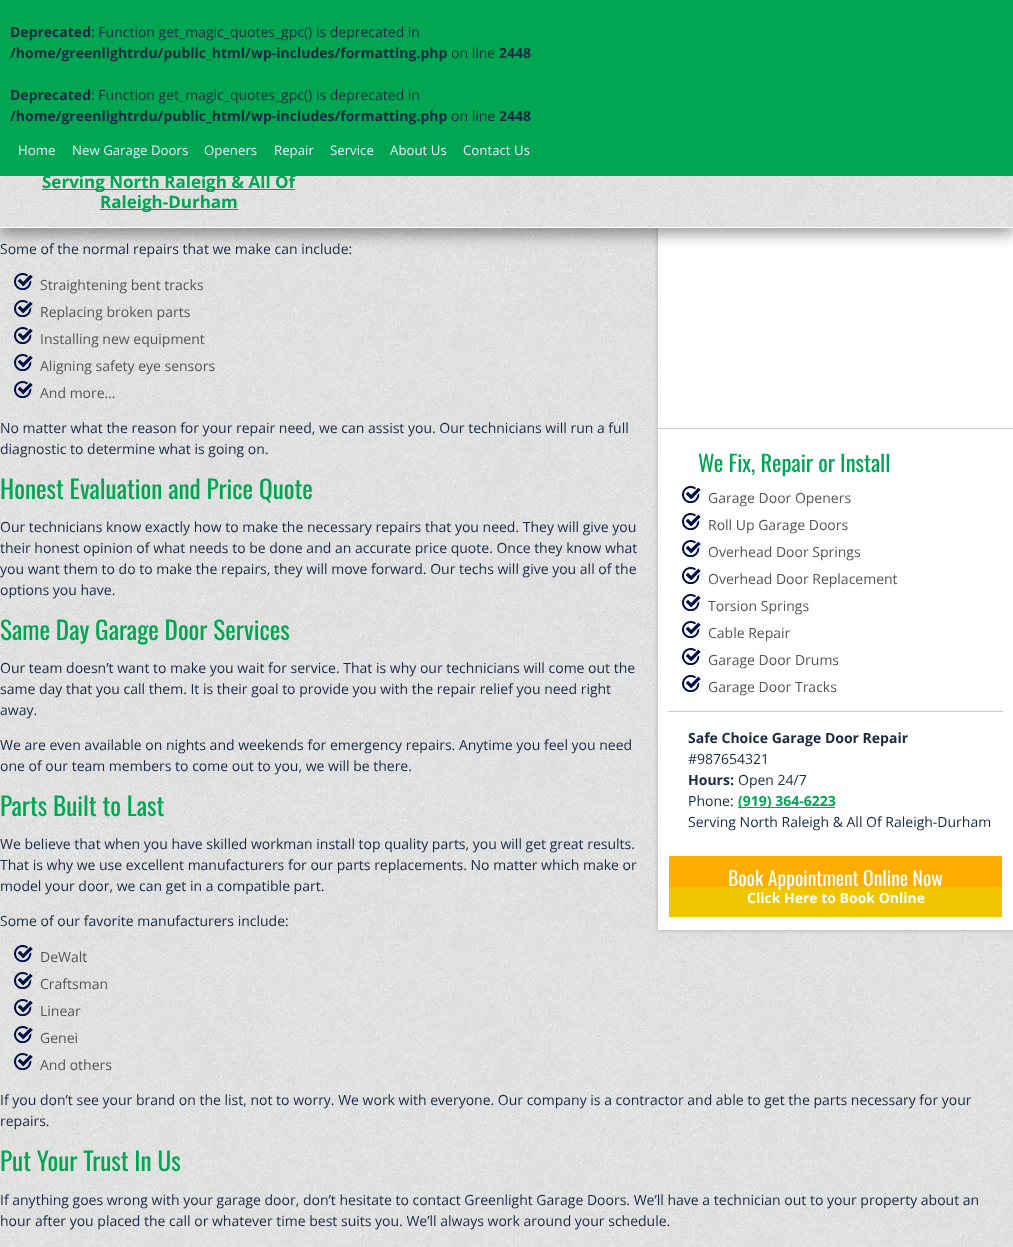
<svg xmlns="http://www.w3.org/2000/svg" width="1013" height="1247">
<defs>
<clipPath id="clip1"><rect x="668" y="855" width="335" height="63" rx="2"/></clipPath>
<linearGradient id="g1" gradientUnits="userSpaceOnUse" x1="836" y1="856" x2="836" y2="917"><stop offset="0" stop-color="#ffae00"/><stop offset="0.5" stop-color="#ffae00"/><stop offset="0.52" stop-color="#f0c600"/><stop offset="1" stop-color="#f0c600"/></linearGradient>
</defs>
<rect width="100%" height="100%" fill="#fff"/>
<image x="0" y="228" width="1013" height="1019" href="media/1.png"/>
<rect x="658" y="61" width="355" height="869" fill="#aaa" filter="blur(2.5px)"/>
<rect x="658" y="228" width="355" height="702" fill="#fff"/>
<rect y="6" width="1013" height="228" fill="#00000066" filter="blur(7.5px)"/>
<image x="0" y="176" width="1013" height="51" href="media/2.png"/>
<rect y="227" width="1013" height="1" fill="#fff"/>
<rect width="1013" height="176" fill="#00a651"/>
<text x="10" y="37" style="font-family:Open Sans;font-size:14px;font-weight:bold;fill:#182942">Deprecated</text>
<text x="91" y="37" style="font-family:Open Sans;font-size:14px;fill:#182942">: Function get_magic_quotes_gpc() is deprecated in</text>
<text x="10" y="58" style="font-family:Open Sans;font-size:14px;font-weight:bold;fill:#182942">/home/greenlightrdu/public_html/wp-includes/formatting.php</text>
<text x="451" y="58" style="font-family:Open Sans;font-size:14px;fill:#182942">on line</text>
<text x="499" y="58" style="font-family:Open Sans;font-size:14px;font-weight:bold;fill:#182942">2448</text>
<text x="10" y="100" style="font-family:Open Sans;font-size:14px;font-weight:bold;fill:#182942">Deprecated</text>
<text x="91" y="100" style="font-family:Open Sans;font-size:14px;fill:#182942">: Function get_magic_quotes_gpc() is deprecated in</text>
<text x="10" y="121" style="font-family:Open Sans;font-size:14px;font-weight:bold;fill:#182942">/home/greenlightrdu/public_html/wp-includes/formatting.php</text>
<text x="451" y="121" style="font-family:Open Sans;font-size:14px;fill:#182942">on line</text>
<text x="499" y="121" style="font-family:Open Sans;font-size:14px;font-weight:bold;fill:#182942">2448</text>
<text x="18" y="155" style="font-family:Open Sans;font-size:13.25px;fill:#ece4fc">Home</text>
<text x="72" y="155" style="font-family:Open Sans;font-size:13.25px;fill:#ece4fc">New Garage Doors</text>
<text x="204" y="155" style="font-family:Open Sans;font-size:13.25px;fill:#ece4fc">Openers</text>
<text x="274" y="155" style="font-family:Open Sans;font-size:13.25px;fill:#ece4fc">Repair</text>
<text x="330" y="155" style="font-family:Open Sans;font-size:13.25px;fill:#ece4fc">Service</text>
<text x="390" y="155" style="font-family:Open Sans;font-size:13.25px;fill:#ece4fc">About Us</text>
<text x="463" y="155" style="font-family:Open Sans;font-size:13.25px;fill:#ece4fc">Contact Us</text>
<rect x="42" y="189" width="253" height="1" fill="#00a651"/>
<text x="42" y="188" style="font-family:Open Sans;font-size:17px;font-weight:bold;fill:#00a651">Serving North Raleigh &amp; All Of</text>
<rect x="100" y="209" width="138" height="1" fill="#00a651"/>
<text x="100" y="208" style="font-family:Open Sans;font-size:17px;font-weight:bold;fill:#00a651">Raleigh-Durham</text>
<text x="0" y="254" style="font-family:Open Sans;font-size:14px;fill:#182942">Some of the normal repairs that we make can include:</text>
<image x="14" y="273" width="19" height="17" href="media/3.png"/>
<text x="40" y="290" style="font-family:Open Sans;font-size:14px;fill:#555">Straightening bent tracks</text>
<image x="14" y="300" width="19" height="17" href="media/4.png"/>
<text x="40" y="317" style="font-family:Open Sans;font-size:14px;fill:#555">Replacing broken parts</text>
<image x="14" y="327" width="19" height="17" href="media/5.png"/>
<text x="40" y="344" style="font-family:Open Sans;font-size:14px;fill:#555">Installing new equipment</text>
<image x="14" y="354" width="19" height="17" href="media/6.png"/>
<text x="40" y="371" style="font-family:Open Sans;font-size:14px;fill:#555">Aligning safety eye sensors</text>
<image x="14" y="381" width="19" height="17" href="media/7.png"/>
<text x="40" y="398" style="font-family:Open Sans;font-size:14px;fill:#555">And more…</text>
<text x="0" y="433" style="font-family:Open Sans;font-size:14px;fill:#182942">No matter what the reason for your repair need, we can assist you. Our technicians will run a full</text>
<text x="0" y="454" style="font-family:Open Sans;font-size:14px;fill:#182942">diagnostic to determine what is going on.</text>
<text x="0" y="499" style="font-family:Oswald;font-size:25.25px;fill:#00a651">Honest Evaluation and Price Quote</text>
<rect x="658" y="428" width="355" height="1" fill="#ccc"/>
<text x="698" y="472" style="font-family:Oswald;font-size:22.5px;fill:#00a651">We Fix, Repair or Install</text>
<image x="682" y="486" width="19" height="17" href="media/8.png"/>
<text x="708" y="503" style="font-family:Open Sans;font-size:14px;fill:#555">Garage Door Openers</text>
<image x="682" y="513" width="19" height="17" href="media/8.png"/>
<text x="708" y="530" style="font-family:Open Sans;font-size:14px;fill:#555">Roll Up Garage Doors</text>
<image x="682" y="540" width="19" height="17" href="media/8.png"/>
<text x="708" y="557" style="font-family:Open Sans;font-size:14px;fill:#555">Overhead Door Springs</text>
<image x="682" y="567" width="19" height="17" href="media/8.png"/>
<text x="708" y="584" style="font-family:Open Sans;font-size:14px;fill:#555">Overhead Door Replacement</text>
<image x="682" y="594" width="19" height="17" href="media/8.png"/>
<text x="708" y="611" style="font-family:Open Sans;font-size:14px;fill:#555">Torsion Springs</text>
<image x="682" y="621" width="19" height="17" href="media/8.png"/>
<text x="708" y="638" style="font-family:Open Sans;font-size:14px;fill:#555">Cable Repair</text>
<image x="682" y="648" width="19" height="17" href="media/8.png"/>
<text x="708" y="665" style="font-family:Open Sans;font-size:14px;fill:#555">Garage Door Drums</text>
<image x="682" y="675" width="19" height="17" href="media/8.png"/>
<text x="708" y="692" style="font-family:Open Sans;font-size:14px;fill:#555">Garage Door Tracks</text>
<rect x="668" y="711" width="335" height="1" fill="#ccc"/>
<text x="688" y="743" style="font-family:Open Sans;font-size:14px;font-weight:bold;fill:#182942">Safe Choice Garage Door Repair</text>
<text x="688" y="764" style="font-family:Open Sans;font-size:14px;fill:#182942">#987654321</text>
<text x="688" y="785" style="font-family:Open Sans;font-size:14px;font-weight:bold;fill:#182942">Hours:</text>
<text x="738" y="785" style="font-family:Open Sans;font-size:14px;fill:#182942">Open 24/7</text>
<text x="688" y="806" style="font-family:Open Sans;font-size:14px;fill:#182942">Phone:</text>
<rect x="738" y="807" width="97" height="1" fill="#00a651"/>
<text x="738" y="806" style="font-family:Open Sans;font-size:14px;font-weight:bold;fill:#00a651">(919) 364-6223</text>
<text x="688" y="827" style="font-family:Open Sans;font-size:14px;fill:#182942">Serving North Raleigh &amp; All Of Raleigh-Durham</text>
<g clip-path="url(#clip1)">
<rect x="668" y="856" width="335" height="61" fill="url(#g1)"/>
</g>
<rect x="668.5" y="855.5" width="334" height="62" rx="1.5" fill="none" stroke="#fff"/>
<text x="728" y="886" style="font-family:Oswald;font-size:19.6px;fill:#fff">Book Appointment Online Now</text>
<text x="747" y="903" style="font-family:Open Sans;font-size:14px;font-weight:bold;fill:#fff">Click Here to Book Online</text>
<text x="0" y="532" style="font-family:Open Sans;font-size:14px;fill:#182942">Our technicians know exactly how to make the necessary repairs that you need. They will give you</text>
<text x="0" y="553" style="font-family:Open Sans;font-size:14px;fill:#182942">their honest opinion of what needs to be done and an accurate price quote. Once they know what</text>
<text x="0" y="574" style="font-family:Open Sans;font-size:14px;fill:#182942">you want them to do to make the repairs, they will move forward. Our techs will give you all of the</text>
<text x="0" y="595" style="font-family:Open Sans;font-size:14px;fill:#182942">options you have.</text>
<text x="0" y="640" style="font-family:Oswald;font-size:25.25px;fill:#00a651">Same Day Garage Door Services</text>
<text x="0" y="673" style="font-family:Open Sans;font-size:14px;fill:#182942">Our team doesn’t want to make you wait for service. That is why our technicians will come out the</text>
<text x="0" y="694" style="font-family:Open Sans;font-size:14px;fill:#182942">same day that you call them. It is their goal to provide you with the repair relief you need right</text>
<text x="0" y="715" style="font-family:Open Sans;font-size:14px;fill:#182942">away.</text>
<text x="0" y="750" style="font-family:Open Sans;font-size:14px;fill:#182942">We are even available on nights and weekends for emergency repairs. Anytime you feel you need</text>
<text x="0" y="771" style="font-family:Open Sans;font-size:14px;fill:#182942">one of our team members to come out to you, we will be there.</text>
<text x="0" y="816" style="font-family:Oswald;font-size:25.25px;fill:#00a651">Parts Built to Last</text>
<text x="0" y="849" style="font-family:Open Sans;font-size:14px;fill:#182942">We believe that when you have skilled workman install top quality parts, you will get great results.</text>
<text x="0" y="870" style="font-family:Open Sans;font-size:14px;fill:#182942">That is why we use excellent manufacturers for our parts replacements. No matter which make or</text>
<text x="0" y="891" style="font-family:Open Sans;font-size:14px;fill:#182942">model your door, we can get in a compatible part.</text>
<text x="0" y="926" style="font-family:Open Sans;font-size:14px;fill:#182942">Some of our favorite manufacturers include:</text>
<image x="14" y="945" width="19" height="17" href="media/9.png"/>
<text x="40" y="962" style="font-family:Open Sans;font-size:14px;fill:#555">DeWalt</text>
<image x="14" y="972" width="19" height="17" href="media/10.png"/>
<text x="40" y="989" style="font-family:Open Sans;font-size:14px;fill:#555">Craftsman</text>
<image x="14" y="999" width="19" height="17" href="media/11.png"/>
<text x="40" y="1016" style="font-family:Open Sans;font-size:14px;fill:#555">Linear</text>
<image x="14" y="1026" width="19" height="17" href="media/12.png"/>
<text x="40" y="1043" style="font-family:Open Sans;font-size:14px;fill:#555">Genei</text>
<image x="14" y="1053" width="19" height="17" href="media/13.png"/>
<text x="40" y="1070" style="font-family:Open Sans;font-size:14px;fill:#555">And others</text>
<text x="0" y="1105" style="font-family:Open Sans;font-size:14px;fill:#182942">If you don’t see your brand on the list, not to worry. We work with everyone. Our company is a contractor and able to get the parts necessary for your</text>
<text x="0" y="1126" style="font-family:Open Sans;font-size:14px;fill:#182942">repairs.</text>
<text x="0" y="1171" style="font-family:Oswald;font-size:25.25px;fill:#00a651">Put Your Trust In Us</text>
<text x="0" y="1205" style="font-family:Open Sans;font-size:14px;fill:#182942">If anything goes wrong with your garage door, don’t hesitate to contact Greenlight Garage Doors. We’ll have a technician out to your property about an</text>
<text x="0" y="1226" style="font-family:Open Sans;font-size:14px;fill:#182942">hour after you placed the call or whatever time best suits you. We’ll always work around your schedule.</text>
</svg>
